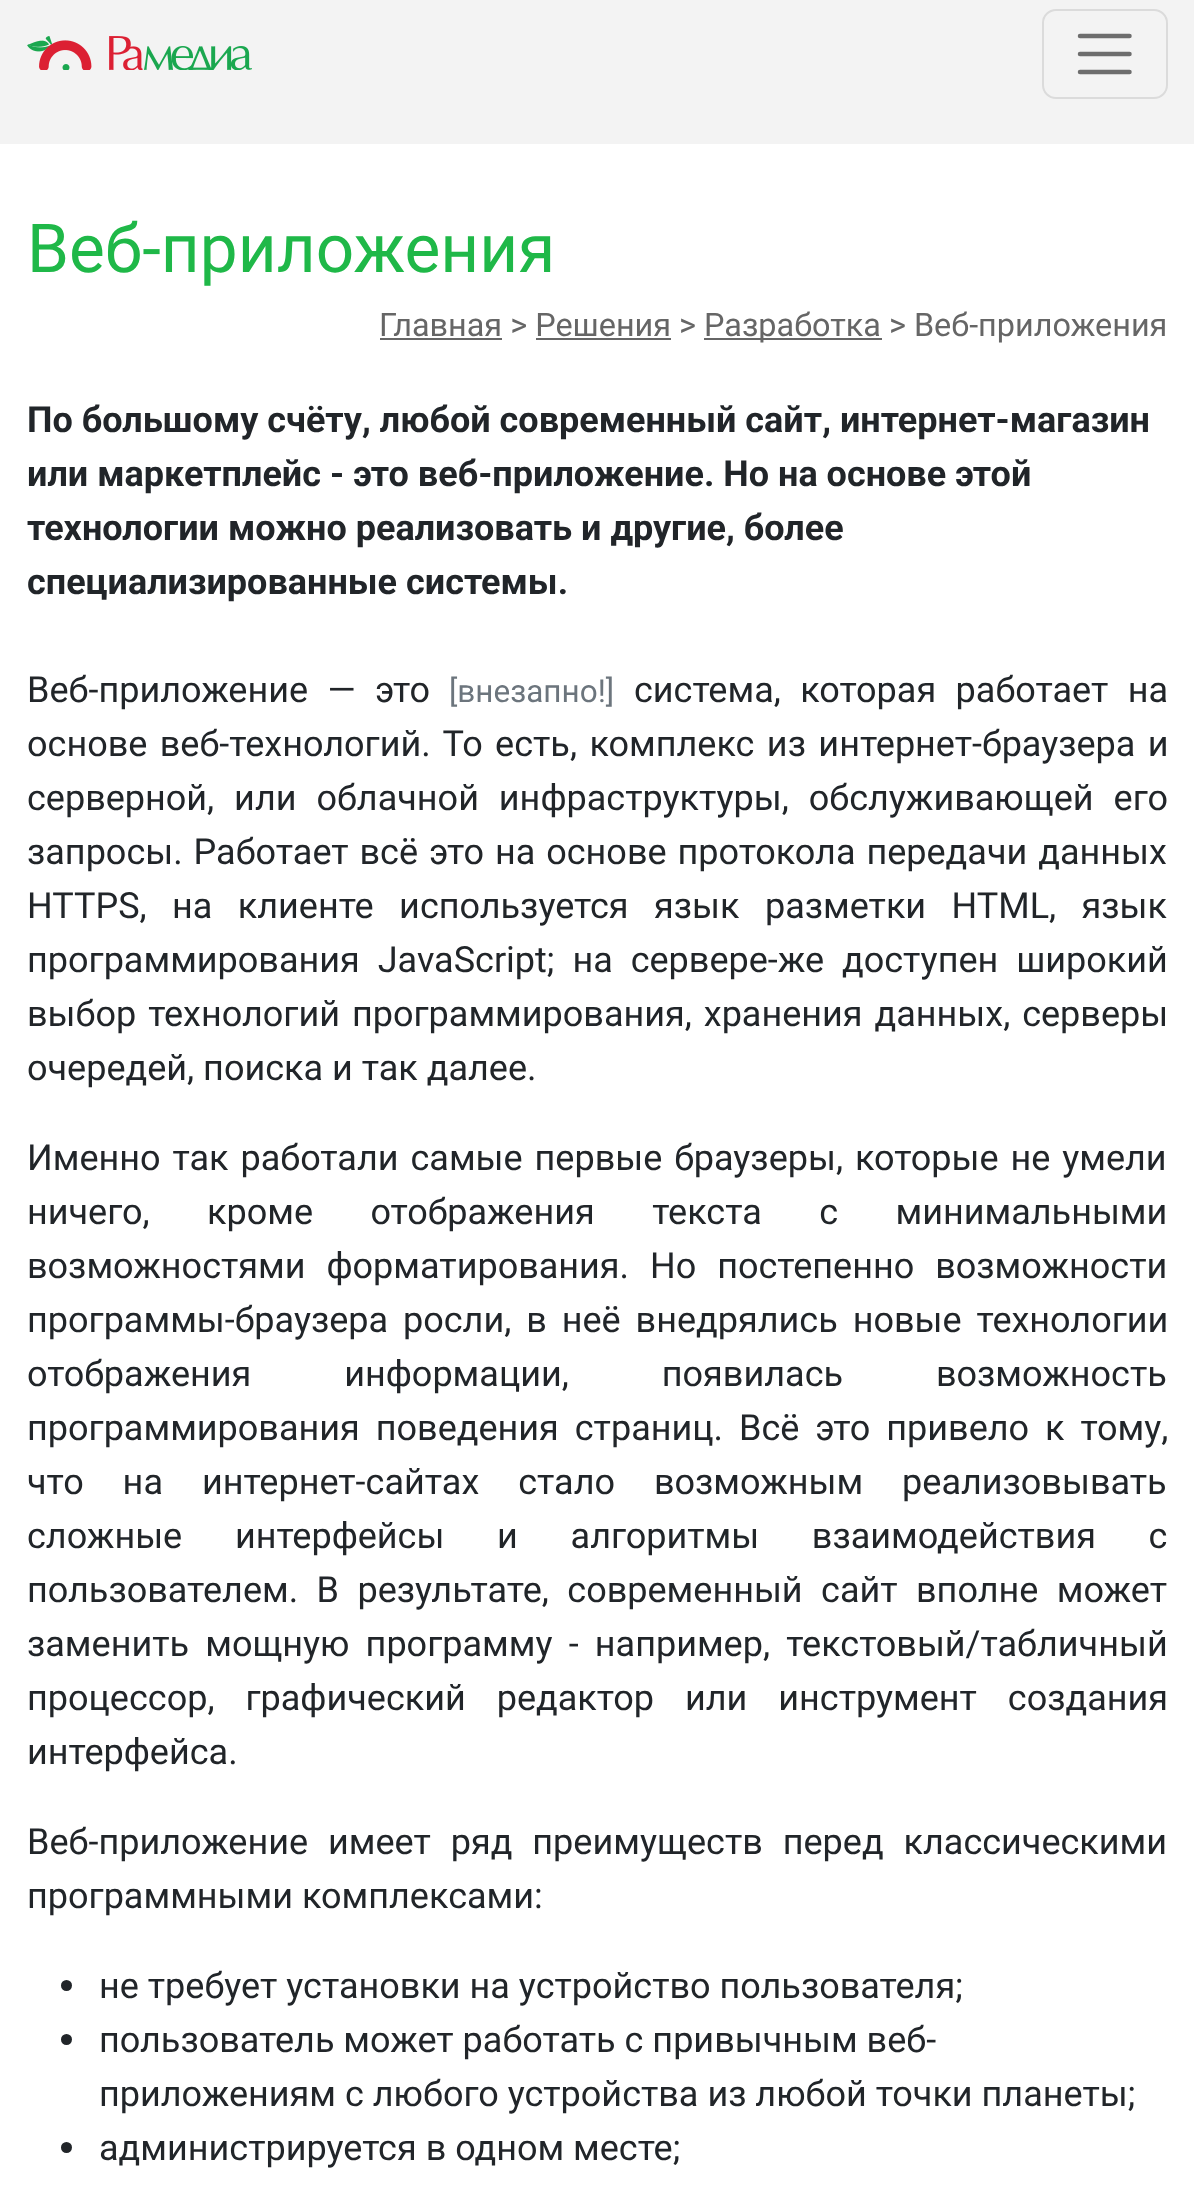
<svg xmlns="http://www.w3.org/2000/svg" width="1194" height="2187">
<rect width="100%" height="100%" fill="#fff"/>
<rect width="1194" height="144" fill="#f3f3f3"/>
<image x="27" y="36" width="225" height="34" href="media/1.png"/>
<rect x="1043" y="10" width="124" height="88" rx="13" fill="none" stroke="#dbdbdb" stroke-width="2"/>
<path d="M1080 36h49.5m-49.5 18h49.5m-49.5 18h49.5" fill="none" stroke="#6d6d6d" stroke-width="4.5" stroke-linecap="round"/>
<text x="27" y="272" style="font-family:Roboto;font-size:67.5px;fill:#1fb848">Веб-приложения</text>
<text x="379" y="336" style="font-family:Roboto;font-size:32.4px;fill:#666">Главная &gt; Решения &gt;</text>
<rect x="380" y="338" width="122" height="2" fill="#666"/>
<rect x="704" y="338" width="178" height="2" fill="#666"/>
<text x="704" y="336" style="font-family:Roboto;font-size:32.4px;fill:#666">Разработка &gt; Веб-приложения</text>
<rect x="536" y="338" width="135" height="2" fill="#666"/>
<text x="27" y="432" style="font-family:Roboto;font-size:36px;font-weight:bold;fill:#212529">По большому счёту, любой современный сайт, интернет-магазин</text>
<text x="27" y="486" style="font-family:Roboto;font-size:36px;font-weight:bold;fill:#212529">или маркетплейс - это веб-приложение. Но на основе этой</text>
<text x="27" y="540" style="font-family:Roboto;font-size:36px;font-weight:bold;fill:#212529">технологии можно реализовать и другие, более</text>
<text x="27" y="594" style="font-family:Roboto;font-size:36px;font-weight:bold;fill:#212529">специализированные системы.</text>
<text x="27" y="702" word-spacing="10.5" style="font-family:Roboto;font-size:36px;fill:#212529">Веб-приложение — это</text>
<text x="449" y="702" style="font-family:Roboto;font-size:31.5px;fill:#6c757d">[внезапно!]</text>
<text x="634" y="702" word-spacing="10.5" style="font-family:Roboto;font-size:36px;fill:#212529">система, которая работает на</text>
<text x="27" y="756" word-spacing="3.5" style="font-family:Roboto;font-size:36px;fill:#212529">основе веб-технологий. То есть, комплекс из интернет-браузера и</text>
<text x="27" y="810" word-spacing="11" style="font-family:Roboto;font-size:36px;fill:#212529">серверной, или облачной инфраструктуры, обслуживающей его</text>
<text x="27" y="864" word-spacing="2" style="font-family:Roboto;font-size:36px;fill:#212529">запросы. Работает всё это на основе протокола передачи данных</text>
<text x="27" y="918" word-spacing="16.5" style="font-family:Roboto;font-size:36px;fill:#212529">HTTPS, на клиенте используется язык разметки HTML, язык</text>
<text x="27" y="972" word-spacing="9" style="font-family:Roboto;font-size:36px;fill:#212529">программирования JavaScript; на сервере-же доступен широкий</text>
<text x="27" y="1026" word-spacing="3" style="font-family:Roboto;font-size:36px;fill:#212529">выбор технологий программирования, хранения данных, серверы</text>
<text x="27" y="1080" style="font-family:Roboto;font-size:36px;fill:#212529">очередей, поиска и так далее.</text>
<text x="27" y="1170" word-spacing="3" style="font-family:Roboto;font-size:36px;fill:#212529">Именно так работали самые первые браузеры, которые не умели</text>
<text x="27" y="1224" word-spacing="48.5" style="font-family:Roboto;font-size:36px;fill:#212529">ничего, кроме отображения текста с минимальными</text>
<text x="27" y="1278" word-spacing="12" style="font-family:Roboto;font-size:36px;fill:#212529">возможностями форматирования. Но постепенно возможности</text>
<text x="27" y="1332" word-spacing="6" style="font-family:Roboto;font-size:36px;fill:#212529">программы-браузера росли, в неё внедрялись новые технологии</text>
<text x="27" y="1386" word-spacing="84" style="font-family:Roboto;font-size:36px;fill:#212529">отображения информации, появилась возможность</text>
<text x="27" y="1440" word-spacing="7" style="font-family:Roboto;font-size:36px;fill:#212529">программирования поведения страниц. Всё это привело к тому,</text>
<text x="27" y="1494" word-spacing="30" style="font-family:Roboto;font-size:36px;fill:#212529">что на интернет-сайтах стало возможным реализовывать</text>
<text x="27" y="1548" word-spacing="43.75" style="font-family:Roboto;font-size:36px;fill:#212529">сложные интерфейсы и алгоритмы взаимодействия с</text>
<text x="27" y="1602" word-spacing="9.5" style="font-family:Roboto;font-size:36px;fill:#212529">пользователем. В результате, современный сайт вполне может</text>
<text x="27" y="1656" word-spacing="7.25" style="font-family:Roboto;font-size:36px;fill:#212529">заменить мощную программу - например, текстовый/табличный</text>
<text x="27" y="1710" word-spacing="22" style="font-family:Roboto;font-size:36px;fill:#212529">процессор, графический редактор или инструмент создания</text>
<text x="27" y="1764" style="font-family:Roboto;font-size:36px;fill:#212529">интерфейса.</text>
<text x="27" y="1854" word-spacing="11" style="font-family:Roboto;font-size:36px;fill:#212529">Веб-приложение имеет ряд преимуществ перед классическими</text>
<text x="27" y="1908" style="font-family:Roboto;font-size:36px;fill:#212529">программными комплексами:</text>
<circle cx="66.5" cy="1985.5" r="5.5" fill="#212529"/>
<text x="99" y="1998" style="font-family:Roboto;font-size:36px;fill:#212529">не требует установки на устройство пользователя;</text>
<circle cx="66.5" cy="2039.5" r="5.5" fill="#212529"/>
<text x="99" y="2052" style="font-family:Roboto;font-size:36px;fill:#212529">пользователь может работать с привычным веб-</text>
<text x="99" y="2106" style="font-family:Roboto;font-size:36px;fill:#212529">приложениям с любого устройства из любой точки планеты;</text>
<circle cx="66.5" cy="2147.5" r="5.5" fill="#212529"/>
<text x="99" y="2160" style="font-family:Roboto;font-size:36px;fill:#212529">администрируется в одном месте;</text>
</svg>
